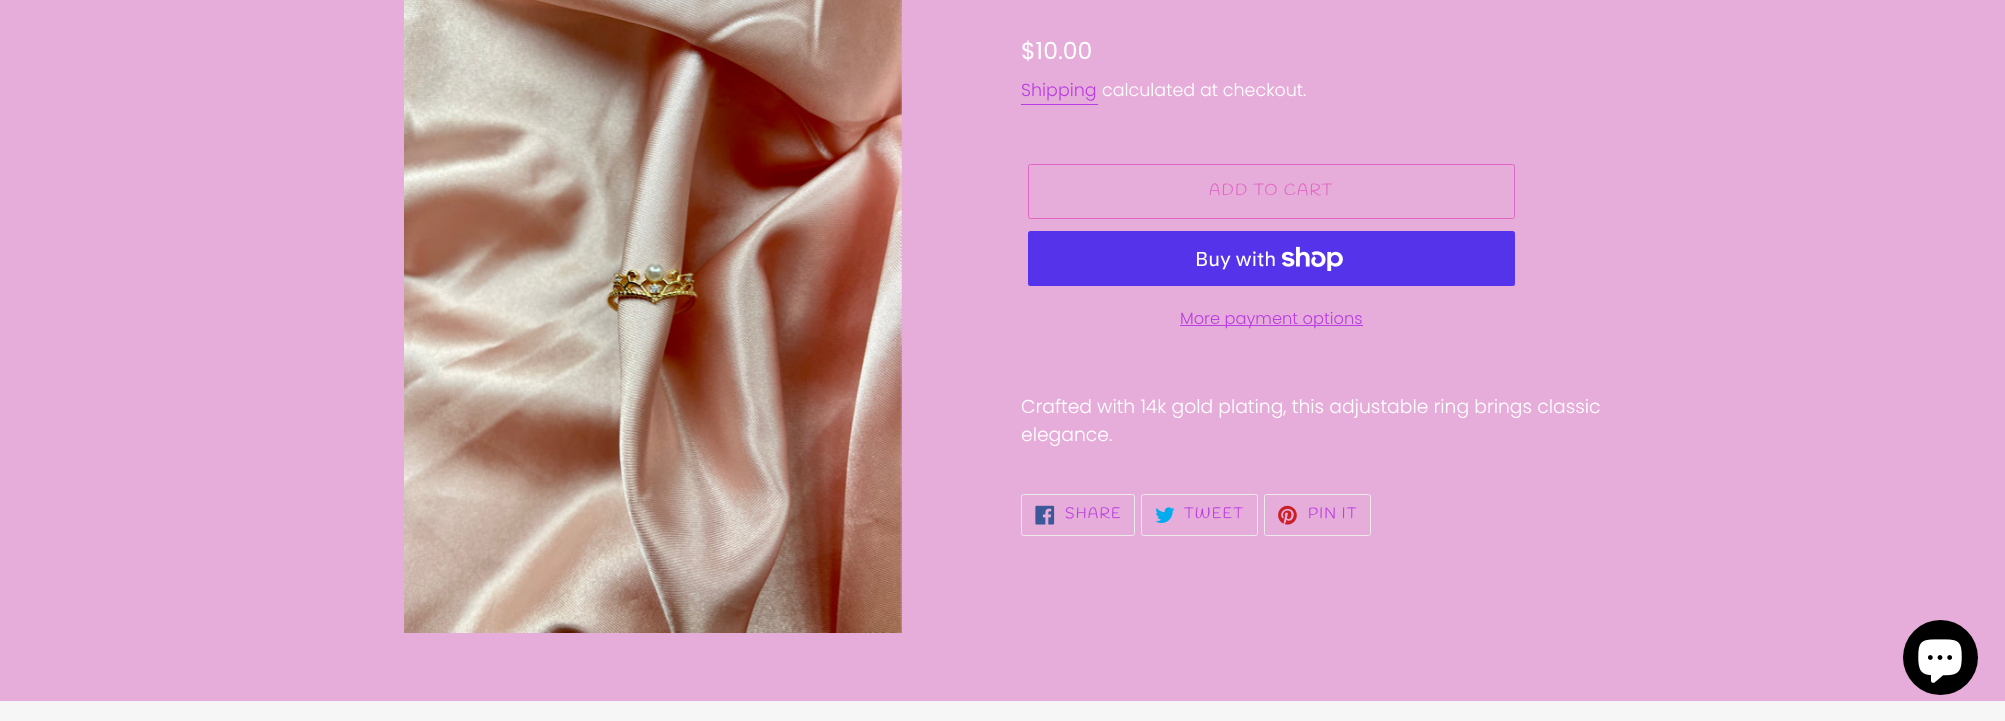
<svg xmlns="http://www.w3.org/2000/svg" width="2005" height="721">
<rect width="100%" height="100%" fill="#e7adda"/>
<image x="404" y="0" width="498" height="633" href="media/1.png"/>
<text x="1021" y="59" style="font-family:Poppins;font-size:23.5px;fill:#fff">$10.00</text>
<text x="1021" y="96" style="font-family:Poppins;font-size:17.5px;font-weight:300;fill:#b83de2">Shipping</text>
<rect x="1021" y="104" width="77" height="1" fill="#b83de2"/>
<text x="1102" y="96" style="font-family:Poppins;font-size:17.5px;font-weight:300;fill:#fff">calculated at checkout.</text>
<rect x="1028.5" y="164.5" width="486" height="54" rx="2" fill="none" stroke="#e166c6"/>
<text x="1209" y="195" style="font-family:Handlee;font-size:16.25px;letter-spacing:1.25px;fill:#e166c6">ADD TO CART</text>
<rect x="1028" y="231" width="487" height="55" rx="2.5" fill="#5433eb"/>
<text x="1195" y="266" style="font-family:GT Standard;font-size:20px;fill:#fff">Buy with</text>
<image x="1281" y="246" width="62" height="25" href="media/2.png"/>
<rect x="1180" y="325" width="183" height="1" fill="#b83de2"/>
<text x="1180" y="324" style="font-family:Poppins;font-size:16.25px;font-weight:300;fill:#b83de2">More payment options</text>
<text x="1021" y="413" style="font-family:Poppins;font-size:18.75px;font-weight:300;fill:#fff">Crafted with 14k gold plating, this adjustable ring brings classic</text>
<text x="1021" y="441" style="font-family:Poppins;font-size:18.75px;font-weight:300;fill:#fff">elegance.</text>
<rect x="1021.5" y="494.5" width="113" height="41" rx="2" fill="none" stroke="#ebebeb"/>
<image x="1035" y="505" width="20" height="20" href="media/3.png"/>
<text x="1065" y="518" style="font-family:Handlee;font-size:15px;letter-spacing:1.25px;fill:#b83de2">SHARE</text>
<rect x="1141.5" y="494.5" width="116" height="41" rx="2" fill="none" stroke="#ebebeb"/>
<image x="1155" y="507" width="20" height="16" href="media/4.png"/>
<text x="1184" y="518" style="font-family:Handlee;font-size:15px;letter-spacing:1.25px;fill:#b83de2">TWEET</text>
<rect x="1264.5" y="494.5" width="106" height="41" rx="2" fill="none" stroke="#ebebeb"/>
<image x="1278" y="505" width="19" height="20" href="media/5.png"/>
<text x="1308" y="518" style="font-family:Handlee;font-size:15px;letter-spacing:1.25px;fill:#b83de2">PIN IT</text>
<rect y="701" width="2005" height="20" fill="#f6f6f6"/>
<circle cx="1940.5" cy="657.5" r="37.5" fill="#000"/>
<image x="1918" y="639" width="44" height="44" href="media/6.png"/>
</svg>
